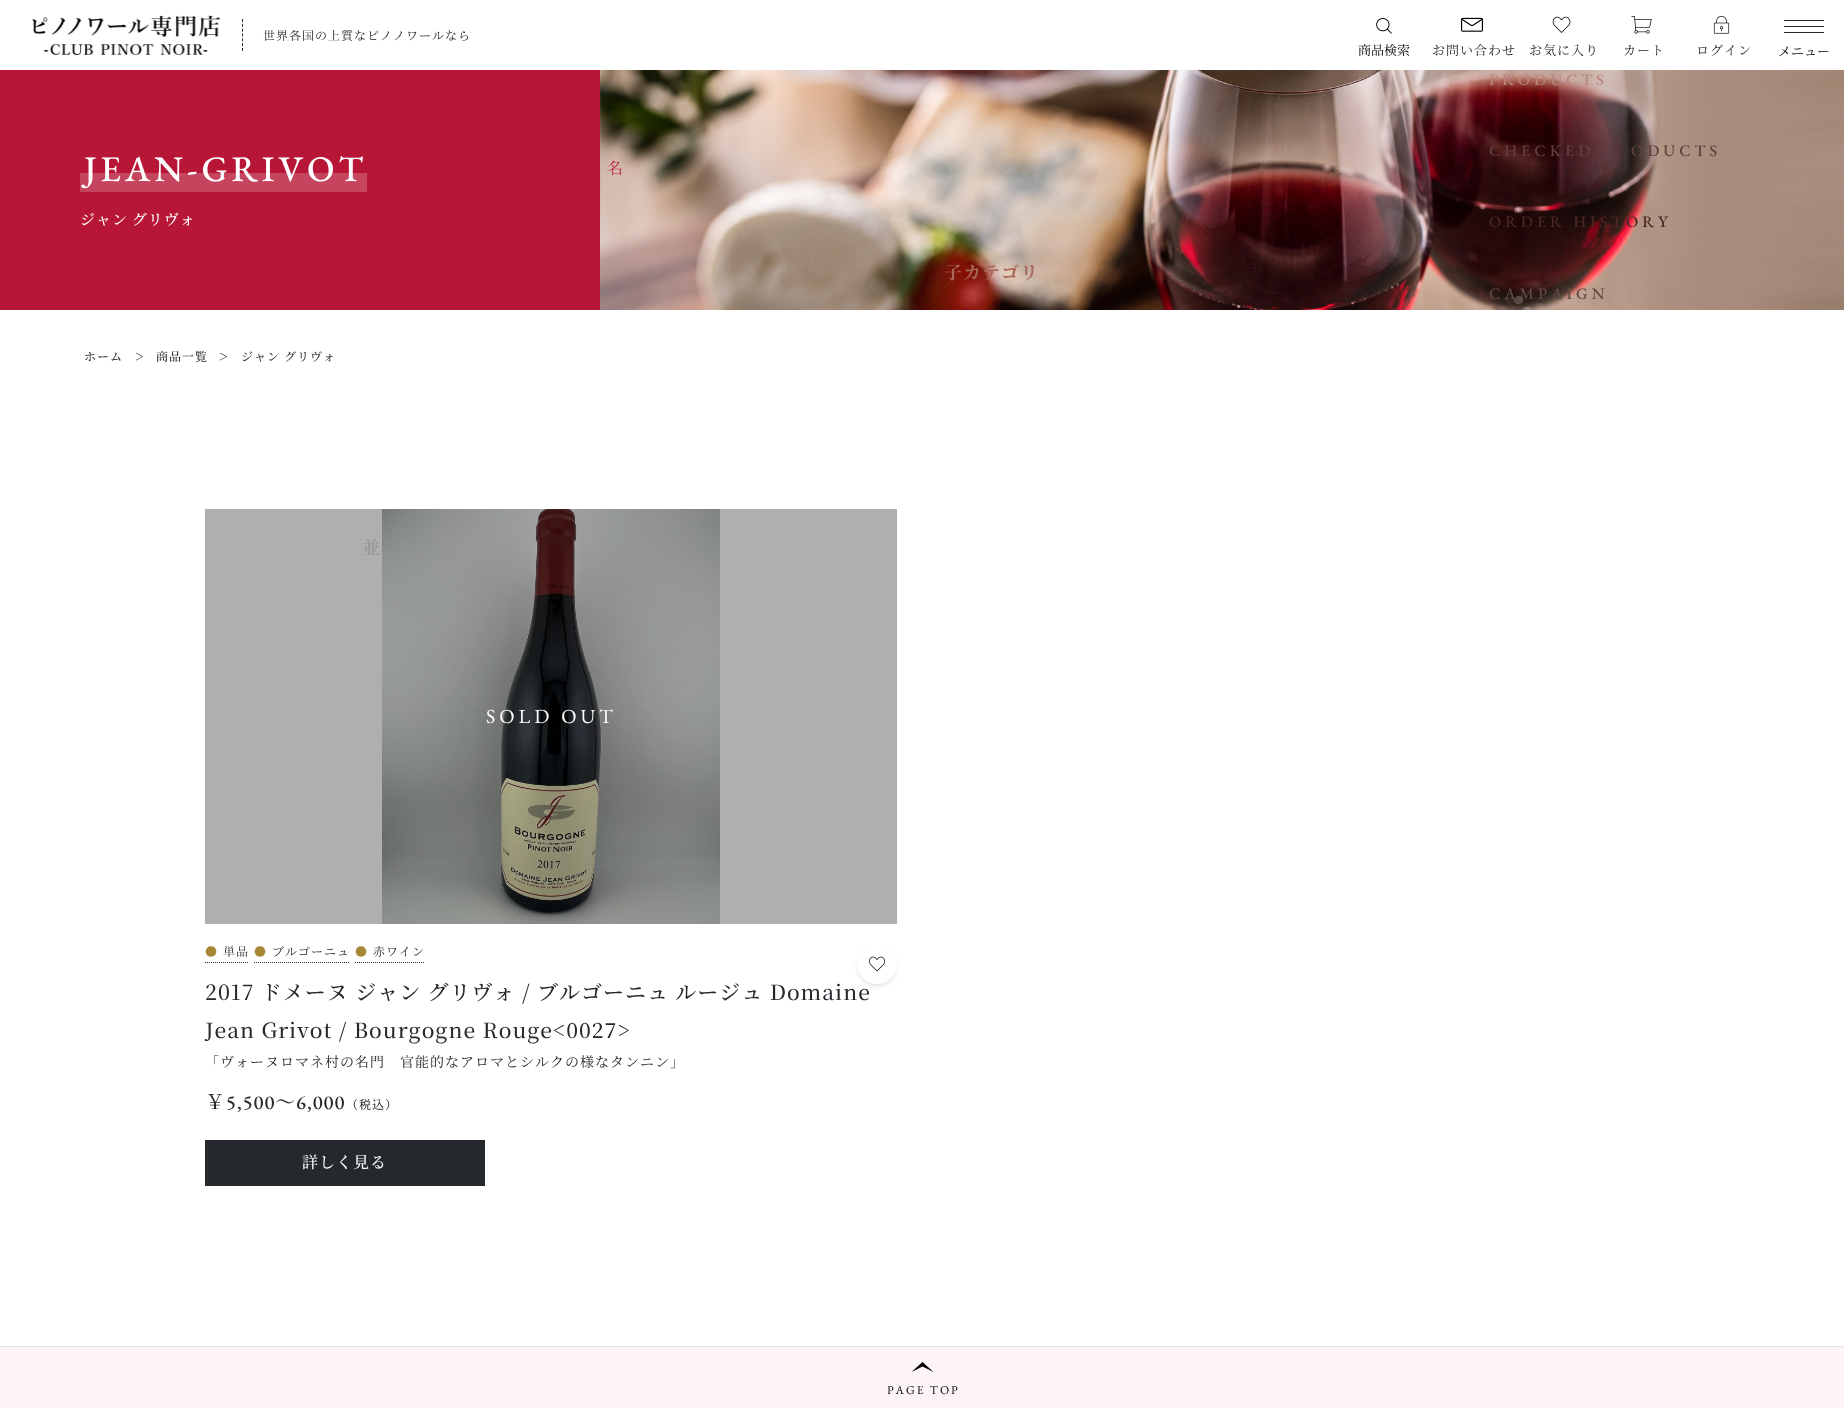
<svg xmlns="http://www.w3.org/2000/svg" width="1844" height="1408">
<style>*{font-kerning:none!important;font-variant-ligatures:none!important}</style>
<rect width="100%" height="100%" fill="#fff"/>
<image x="32" y="15" width="189" height="40" href="media/1.png"/>
<path d="M242.5 19v32" fill="none" stroke="#25282d" stroke-dasharray="3 1.83"/>
<text x="263" y="40" style="font-family:Noto Serif JP;font-size:12px;letter-spacing:1px;fill:#25282d">世界各国の上質なピノノワールなら</text>
<image x="1376" y="18" width="16" height="16" href="media/2.png"/>
<text x="1358" y="55" style="font-family:Noto Serif JP;font-size:13px;fill:#000">商品検索</text>
<image x="1461" y="17" width="22" height="15" href="media/3.png"/>
<text x="1432" y="55" style="font-family:Noto Serif JP;font-size:13px;letter-spacing:1px;fill:#25282d">お問い合わせ</text>
<image x="1552" y="16" width="19" height="17" href="media/4.png"/>
<text x="1529" y="55" style="font-family:Noto Serif JP;font-size:13px;letter-spacing:1px;fill:#25282d">お気に入り</text>
<image x="1631" y="16" width="21" height="18" href="media/5.png"/>
<text x="1623" y="55" style="font-family:Noto Serif JP;font-size:13px;letter-spacing:1px;fill:#25282d">カート</text>
<image x="1713" y="16" width="17" height="18" href="media/6.png"/>
<text x="1696" y="55" style="font-family:Noto Serif JP;font-size:13px;letter-spacing:1px;fill:#25282d">ログイン</text>
<rect x="1784" y="20" width="40" height="1" fill="#25282d"/>
<rect x="1784" y="26" width="40" height="1" fill="#25282d"/>
<rect x="1784" y="32" width="40" height="1" fill="#25282d"/>
<text x="1778" y="56" style="font-family:Noto Serif JP;font-size:13px;fill:#000">メニュー</text>
<image x="600" y="70" width="1244" height="240" href="media/7.png"/>
<text x="1489" y="85" style="font-family:EB Garamond;font-size:16px;font-weight:500;letter-spacing:4px;fill:#b8867d">PRODUCTS</text>
<text x="1489" y="156" style="font-family:EB Garamond;font-size:16px;font-weight:500;letter-spacing:4px;fill:#62403e">CHECKED</text>
<text x="1631" y="156" style="font-family:EB Garamond;font-size:16px;font-weight:500;letter-spacing:4px;fill:#62403e">ODUCTS</text>
<text x="1489" y="227" style="font-family:EB Garamond;font-size:16px;font-weight:500;letter-spacing:4px;fill:#4b2725">ORDER HISTORY</text>
<text x="1489" y="299" style="font-family:EB Garamond;font-size:16px;font-weight:500;letter-spacing:4px;fill:#634a43">CAMPAIGN</text>
<rect y="70" width="600" height="240" fill="#b81636"/>
<rect x="80" y="173" width="287" height="19" fill="#c6455e"/>
<text x="84" y="181" style="font-family:EB Garamond;font-size:36px;font-weight:500;letter-spacing:4px;fill:#fff">JEAN-GRIVOT</text>
<text x="80" y="225" word-spacing="-1" style="font-family:Noto Serif JP;font-size:15px;font-weight:500;letter-spacing:1px;fill:#fff">ジャン グリヴォ</text>
<text x="84" y="361" style="font-family:Noto Serif JP;font-size:12px;font-weight:500;letter-spacing:1px;fill:#25282d">ホーム</text>
<text x="135" y="362" style="font-family:Noto Serif JP;font-size:15px;letter-spacing:1px;fill:#25282d">&gt;</text>
<text x="156" y="361" style="font-family:Noto Serif JP;font-size:12px;font-weight:500;letter-spacing:1px;fill:#25282d">商品一覧</text>
<text x="219" y="362" style="font-family:Noto Serif JP;font-size:15px;letter-spacing:1px;fill:#25282d">&gt;</text>
<text x="241" y="361" style="font-family:Noto Serif JP;font-size:12px;font-weight:500;letter-spacing:1px;fill:#333">ジャン グリヴォ</text>
<rect x="205" y="509" width="692" height="415" fill="#afafaf"/>
<image x="382" y="509" width="338" height="415" href="media/8.png"/>
<text x="486" y="723" style="font-family:EB Garamond;font-size:20px;letter-spacing:4px;fill:#fff">SOLD OUT</text>
<path d="M205 962.5h44" fill="none" stroke="#25282d" stroke-dasharray="1 1"/>
<text x="205" y="956" style="font-family:Noto Serif JP;font-size:12px;letter-spacing:1px;fill:#a68735">●</text>
<text x="223" y="956" style="font-family:Noto Serif JP;font-size:12px;letter-spacing:1px;fill:#25282d">単品</text>
<path d="M254 962.5h96" fill="none" stroke="#25282d" stroke-dasharray="1 1"/>
<text x="254" y="956" style="font-family:Noto Serif JP;font-size:12px;letter-spacing:1px;fill:#a68735">●</text>
<text x="272" y="956" style="font-family:Noto Serif JP;font-size:12px;letter-spacing:1px;fill:#25282d">ブルゴーニュ</text>
<path d="M355 962.5h70" fill="none" stroke="#25282d" stroke-dasharray="1 1"/>
<text x="355" y="956" style="font-family:Noto Serif JP;font-size:12px;letter-spacing:1px;fill:#a68735">●</text>
<text x="373" y="956" style="font-family:Noto Serif JP;font-size:12px;letter-spacing:1px;fill:#25282d">赤ワイン</text>
<text x="205" y="1000" style="font-family:Noto Serif JP;font-size:21px;font-weight:500;letter-spacing:1px;fill:#25282d">2017 ドメーヌ ジャン グリヴォ / ブルゴーニュ ルージュ Domaine</text>
<text x="205" y="1038" style="font-family:Noto Serif JP;font-size:21px;font-weight:500;letter-spacing:1px;fill:#25282d">Jean Grivot / Bourgogne Rouge&lt;0027&gt;</text>
<rect x="861" y="951" width="32" height="32" rx="16" fill="#33333366" filter="blur(3.5px)"/>
<circle cx="877" cy="964" r="20" fill="#fff"/>
<image x="869" y="956" width="16" height="16" href="media/9.png"/>
<text x="205" y="1067" style="font-family:Noto Serif JP;font-size:14px;letter-spacing:1px;fill:#25282d">「ヴォーヌロマネ村の名門　官能的なアロマとシルクの様なタンニン」</text>
<text x="205" y="1109" style="font-family:Noto Serif JP;font-size:20px;font-weight:500;letter-spacing:1px;fill:#25282d">￥</text>
<text x="226" y="1109" style="font-family:EB Garamond;font-size:20px;font-weight:500;letter-spacing:1px;fill:#25282d">5,500</text>
<text x="275" y="1109" style="font-family:Noto Serif JP;font-size:20px;font-weight:500;letter-spacing:1px;fill:#25282d">〜</text>
<text x="296" y="1109" style="font-family:EB Garamond;font-size:20px;font-weight:500;letter-spacing:1px;fill:#25282d">6,000</text>
<text x="346" y="1109" style="font-family:Noto Serif JP;font-size:12px;font-weight:500;letter-spacing:1px;fill:#25282d">（税込）</text>
<rect x="205" y="1140" width="280" height="46" fill="#25282d"/>
<text x="302" y="1168" style="font-family:Noto Serif JP;font-size:16px;font-weight:500;letter-spacing:1px;fill:#fff">詳しく見る</text>
<rect y="1346" width="1844" height="1" fill="#e5e5e5"/>
<rect y="1347" width="1844" height="61" fill="#fcf4f5"/>
<path d="M911.5 1372l11-10l11 10l-11-5.5z" fill="#000"/>
<text x="887" y="1394" style="font-family:EB Garamond;font-size:12px;letter-spacing:2px;fill:#000">PAGE TOP</text>
<text x="607" y="174" style="font-family:Noto Serif JP;font-size:16px;fill:#bb2843">名</text>
<text x="944" y="279" style="font-family:Noto Serif JP;font-size:18px;font-weight:bold;letter-spacing:1px;fill:#a96759">子カテゴリ</text>
<text x="362" y="554" style="font-family:Noto Serif JP;font-size:18px;font-weight:bold;letter-spacing:1px;fill:#989a99">並</text>
</svg>
